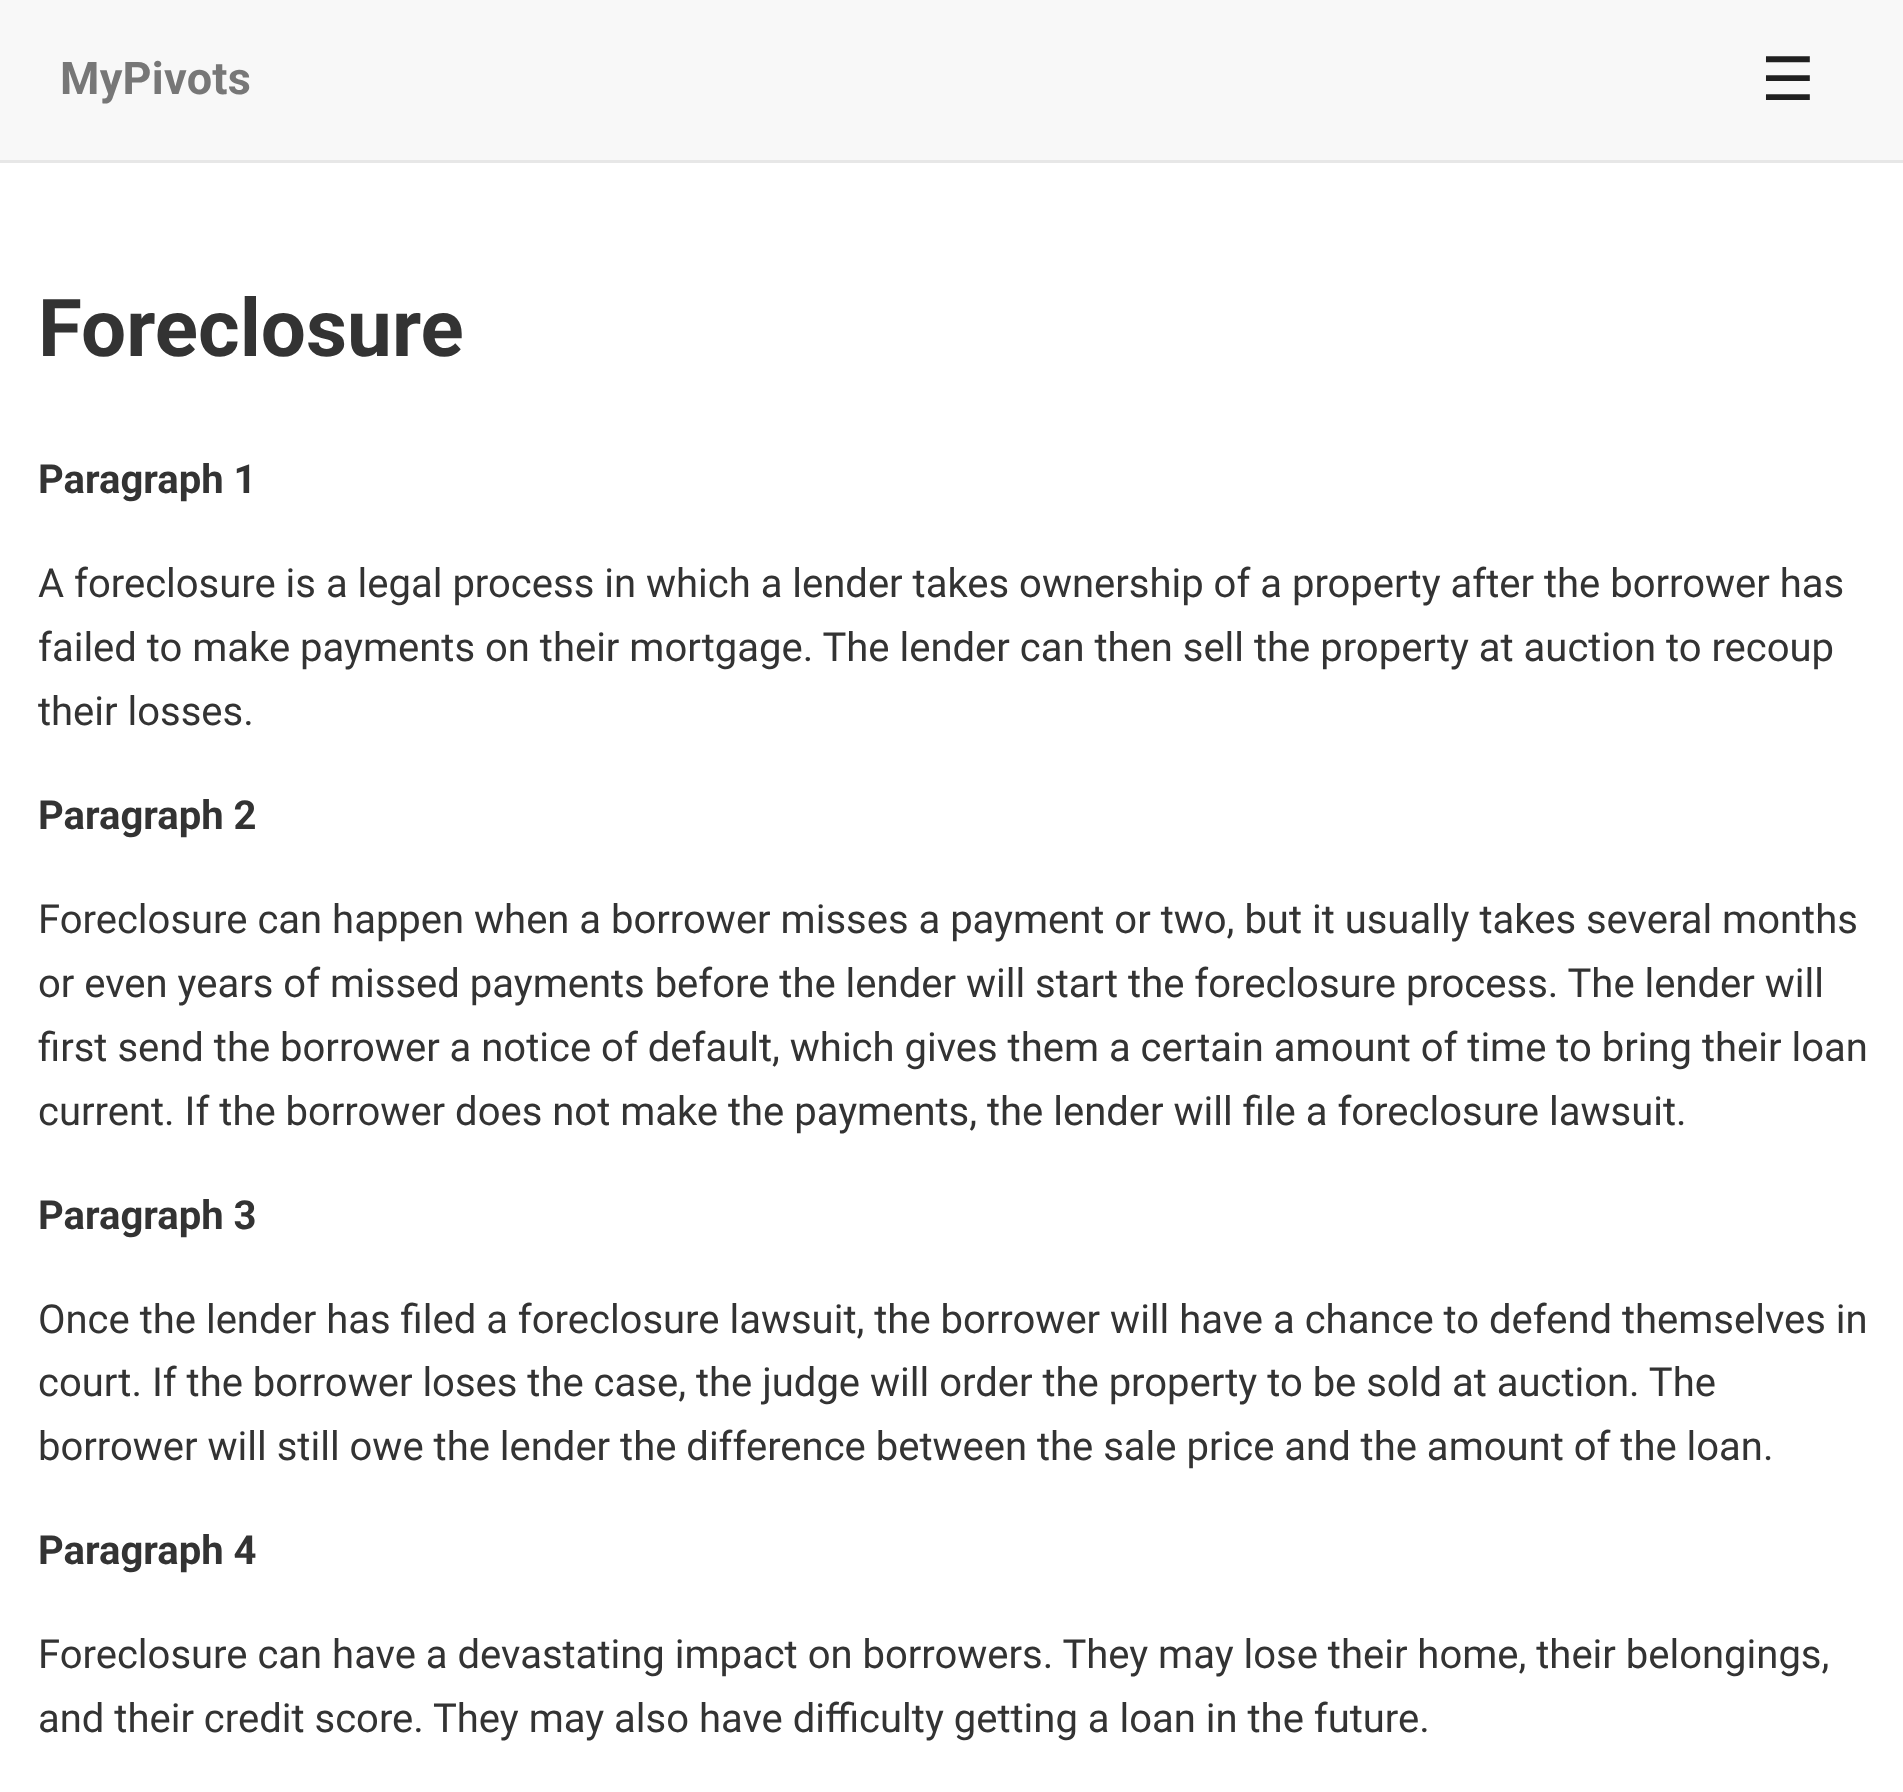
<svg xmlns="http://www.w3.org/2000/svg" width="1903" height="1792">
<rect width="100%" height="100%" fill="#fff"/>
<rect width="1903" height="160" fill="#f8f8f8"/>
<rect y="160" width="1903" height="3" fill="#e7e7e7"/>
<text x="60" y="94" style="font-family:Roboto;font-size:45px;font-weight:bold;letter-spacing:0.25px;fill:#777">MyPivots</text>
<text x="1761" y="100" style="font-family:DejaVu Sans;font-size:60px;fill:#202020">☰</text>
<text x="38" y="356" style="font-family:Roboto;font-size:80px;font-weight:bold;fill:#333">Foreclosure</text>
<text x="38" y="493" style="font-family:Roboto;font-size:40px;font-weight:bold;fill:#333">Paragraph 1</text>
<text x="38" y="597" style="font-family:Roboto;font-size:40px;fill:#333">A foreclosure is a legal process in which a lender takes ownership of a property after the borrower has</text>
<text x="38" y="661" style="font-family:Roboto;font-size:40px;fill:#333">failed to make payments on their mortgage. The lender can then sell the property at auction to recoup</text>
<text x="38" y="725" style="font-family:Roboto;font-size:40px;fill:#333">their losses.</text>
<text x="38" y="829" style="font-family:Roboto;font-size:40px;font-weight:bold;fill:#333">Paragraph 2</text>
<text x="38" y="933" style="font-family:Roboto;font-size:40px;fill:#333">Foreclosure can happen when a borrower misses a payment or two, but it usually takes several months</text>
<text x="38" y="997" style="font-family:Roboto;font-size:40px;fill:#333">or even years of missed payments before the lender will start the foreclosure process. The lender will</text>
<text x="38" y="1061" style="font-family:Roboto;font-size:40px;fill:#333">first send the borrower a notice of default, which gives them a certain amount of time to bring their loan</text>
<text x="38" y="1125" style="font-family:Roboto;font-size:40px;fill:#333">current. If the borrower does not make the payments, the lender will file a foreclosure lawsuit.</text>
<text x="38" y="1229" style="font-family:Roboto;font-size:40px;font-weight:bold;fill:#333">Paragraph 3</text>
<text x="38" y="1333" style="font-family:Roboto;font-size:40px;fill:#333">Once the lender has filed a foreclosure lawsuit, the borrower will have a chance to defend themselves in</text>
<text x="38" y="1396" style="font-family:Roboto;font-size:40px;fill:#333">court. If the borrower loses the case, the judge will order the property to be sold at auction. The</text>
<text x="38" y="1460" style="font-family:Roboto;font-size:40px;fill:#333">borrower will still owe the lender the difference between the sale price and the amount of the loan.</text>
<text x="38" y="1564" style="font-family:Roboto;font-size:40px;font-weight:bold;fill:#333">Paragraph 4</text>
<text x="38" y="1668" style="font-family:Roboto;font-size:40px;fill:#333">Foreclosure can have a devastating impact on borrowers. They may lose their home, their belongings,</text>
<text x="38" y="1732" style="font-family:Roboto;font-size:40px;fill:#333">and their credit score. They may also have difficulty getting a loan in the future.</text>
</svg>
